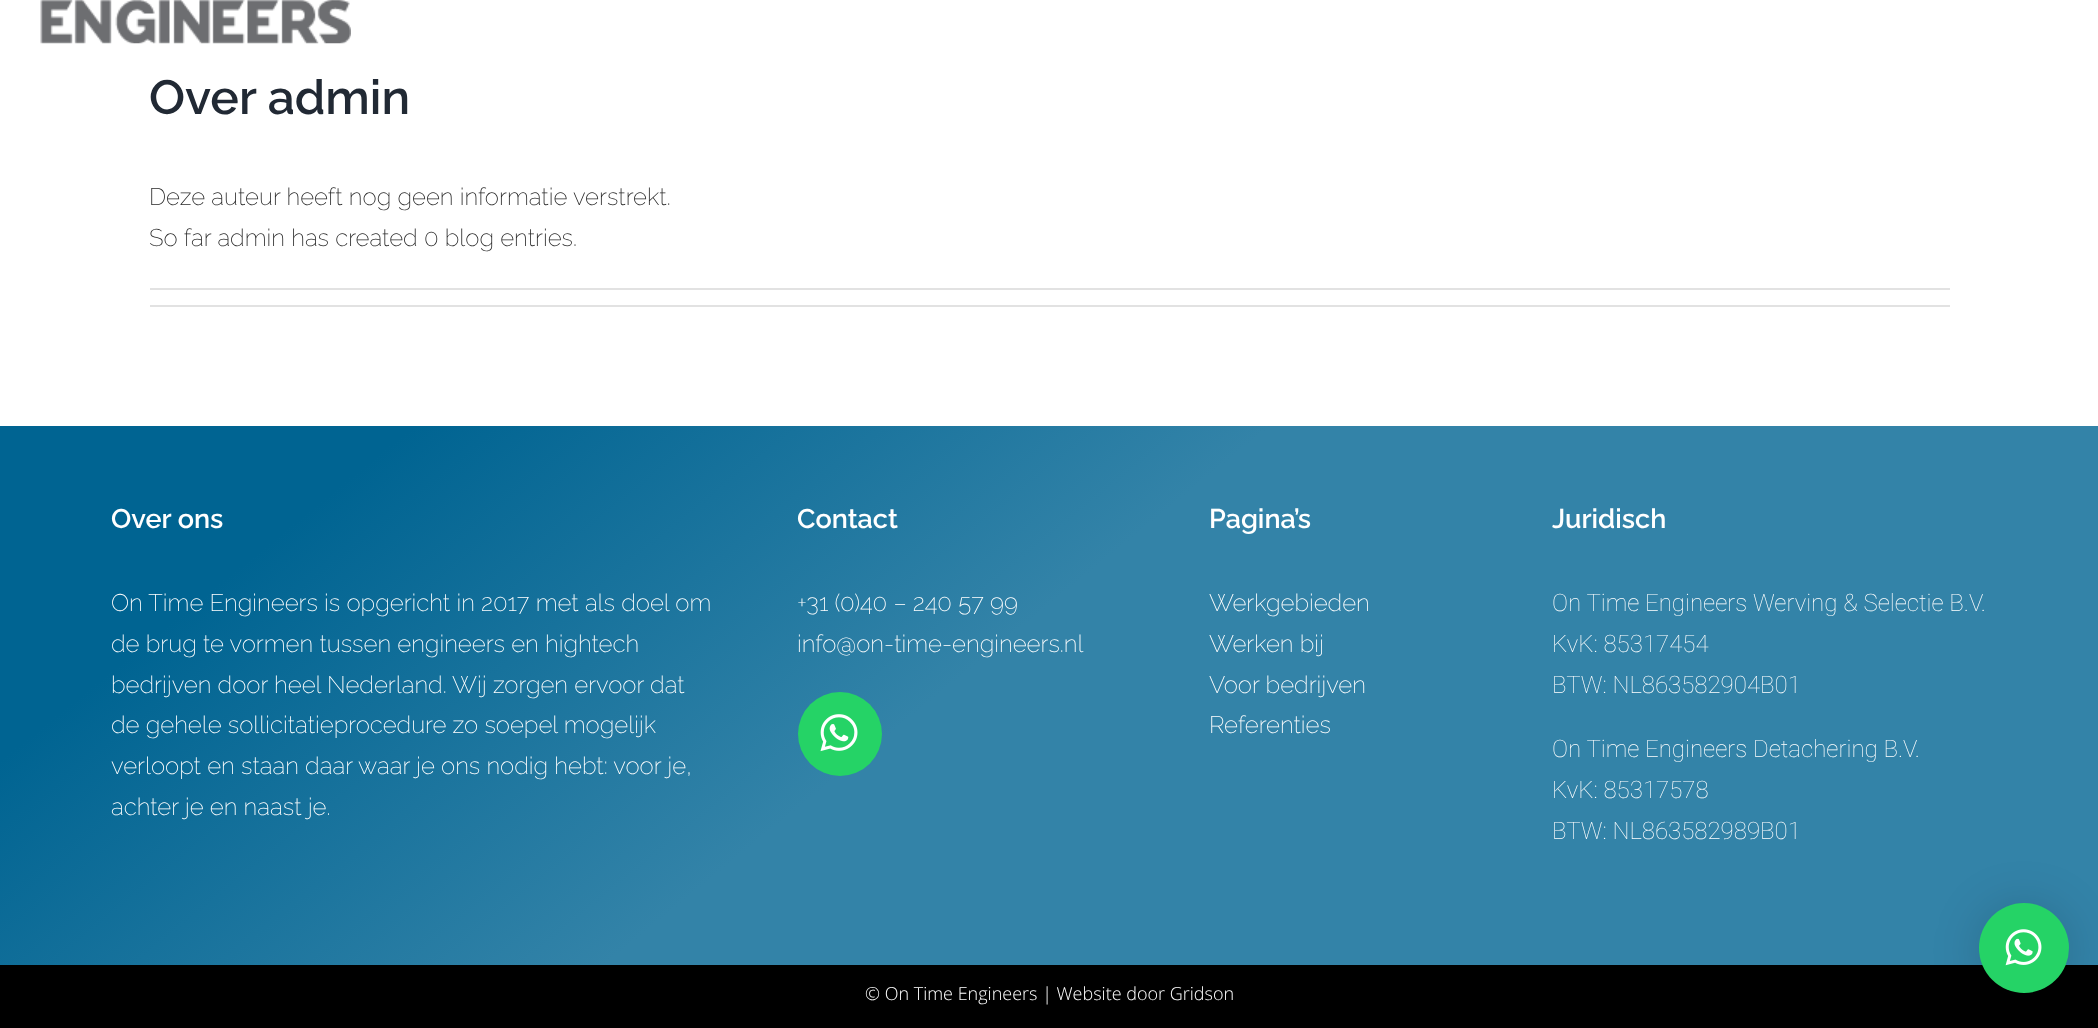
<svg xmlns="http://www.w3.org/2000/svg" width="2098" height="1028">
<defs>
<linearGradient id="g1" gradientUnits="userSpaceOnUse" x1="502" y1="19" x2="1596" y2="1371"><stop offset="0.15" stop-color="#006492"/><stop offset="0.46" stop-color="#3383a8"/></linearGradient>
</defs>
<rect width="100%" height="100%" fill="#fff"/>
<image x="40" y="0" width="311" height="44" href="media/1.png"/>
<text x="149" y="114" style="font-family:Raleway;font-size:48px;font-weight:600;fill:#212934">Over admin</text>
<text x="149" y="205" style="font-family:Raleway;font-size:24px;font-weight:200;fill:#282828">Deze auteur heeft nog geen informatie verstrekt.</text>
<text x="149" y="246" style="font-family:Raleway;font-size:24px;font-weight:200;fill:#282828">So far admin has created 0 blog entries.</text>
<rect x="150" y="288" width="1800" height="2" fill="#e2e2e2"/>
<rect x="150" y="305" width="1800" height="2" fill="#e2e2e2"/>
<rect y="426" width="2098" height="539" fill="url(#g1)"/>
<text x="111" y="528" style="font-family:Raleway;font-size:27px;font-weight:600;fill:#fff">Over ons</text>
<text x="111" y="611" style="font-family:Raleway;font-size:24px;font-weight:200;fill:#fff">On Time Engineers is opgericht in 2017 met als doel om</text>
<text x="111" y="652" style="font-family:Raleway;font-size:24px;font-weight:200;fill:#fff">de brug te vormen tussen engineers en hightech</text>
<text x="111" y="693" style="font-family:Raleway;font-size:24px;font-weight:200;fill:#fff">bedrijven door heel Nederland. Wij zorgen ervoor dat</text>
<text x="111" y="733" style="font-family:Raleway;font-size:24px;font-weight:200;fill:#fff">de gehele sollicitatieprocedure zo soepel mogelijk</text>
<text x="111" y="774" style="font-family:Raleway;font-size:24px;font-weight:200;fill:#fff">verloopt en staan daar waar je ons nodig hebt: voor je,</text>
<text x="111" y="815" style="font-family:Raleway;font-size:24px;font-weight:200;fill:#fff">achter je en naast je.</text>
<text x="797" y="528" style="font-family:Raleway;font-size:27px;font-weight:600;fill:#fff">Contact</text>
<text x="797" y="611" style="font-family:Raleway;font-size:24px;font-weight:200;fill:#fff">+31 (0)40 – 240 57 99</text>
<text x="797" y="652" style="font-family:Raleway;font-size:24px;font-weight:200;fill:#fff">info@on-time-engineers.nl</text>
<circle cx="840" cy="734" r="42" fill="#25d366"/>
<image x="820" y="714" width="38" height="38" href="media/2.png"/>
<text x="1209" y="528" style="font-family:Raleway;font-size:27px;font-weight:600;fill:#fff">Pagina’s</text>
<text x="1209" y="611" style="font-family:Raleway;font-size:24px;font-weight:200;fill:#fff">Werkgebieden</text>
<text x="1209" y="652" style="font-family:Raleway;font-size:24px;font-weight:200;fill:#fff">Werken bij</text>
<text x="1209" y="693" style="font-family:Raleway;font-size:24px;font-weight:200;fill:#fff">Voor bedrijven</text>
<text x="1209" y="733" style="font-family:Raleway;font-size:24px;font-weight:200;fill:#fff">Referenties</text>
<text x="1552" y="528" style="font-family:Raleway;font-size:27px;font-weight:600;fill:#fff">Juridisch</text>
<text x="1552" y="611" style="font-family:Roboto;font-size:24px;font-weight:100;fill:#fff">On Time Engineers Werving &amp; Selectie B.V.</text>
<text x="1552" y="652" style="font-family:Roboto;font-size:24px;font-weight:100;fill:#fff">KvK: 85317454</text>
<text x="1552" y="693" style="font-family:Roboto;font-size:24px;font-weight:100;fill:#fff">BTW: NL863582904B01</text>
<text x="1552" y="757" style="font-family:Roboto;font-size:24px;font-weight:100;fill:#fff">On Time Engineers Detachering B.V.</text>
<text x="1552" y="798" style="font-family:Roboto;font-size:24px;font-weight:100;fill:#fff">KvK: 85317578</text>
<text x="1552" y="839" style="font-family:Roboto;font-size:24px;font-weight:100;fill:#fff">BTW: NL863582989B01</text>
<rect y="965" width="2098" height="63" fill="#000"/>
<text x="865" y="1000" style="font-family:Open Sans;font-size:18px;font-weight:300;fill:#fff">© On Time Engineers | Website door Gridson</text>
<rect x="1979" y="906" width="90" height="90" rx="45" fill="#00000029" filter="blur(24px)"/>
<circle cx="2024" cy="948" r="45" fill="#25d366"/>
<image x="2005" y="929" width="37" height="37" href="media/3.png"/>
</svg>
